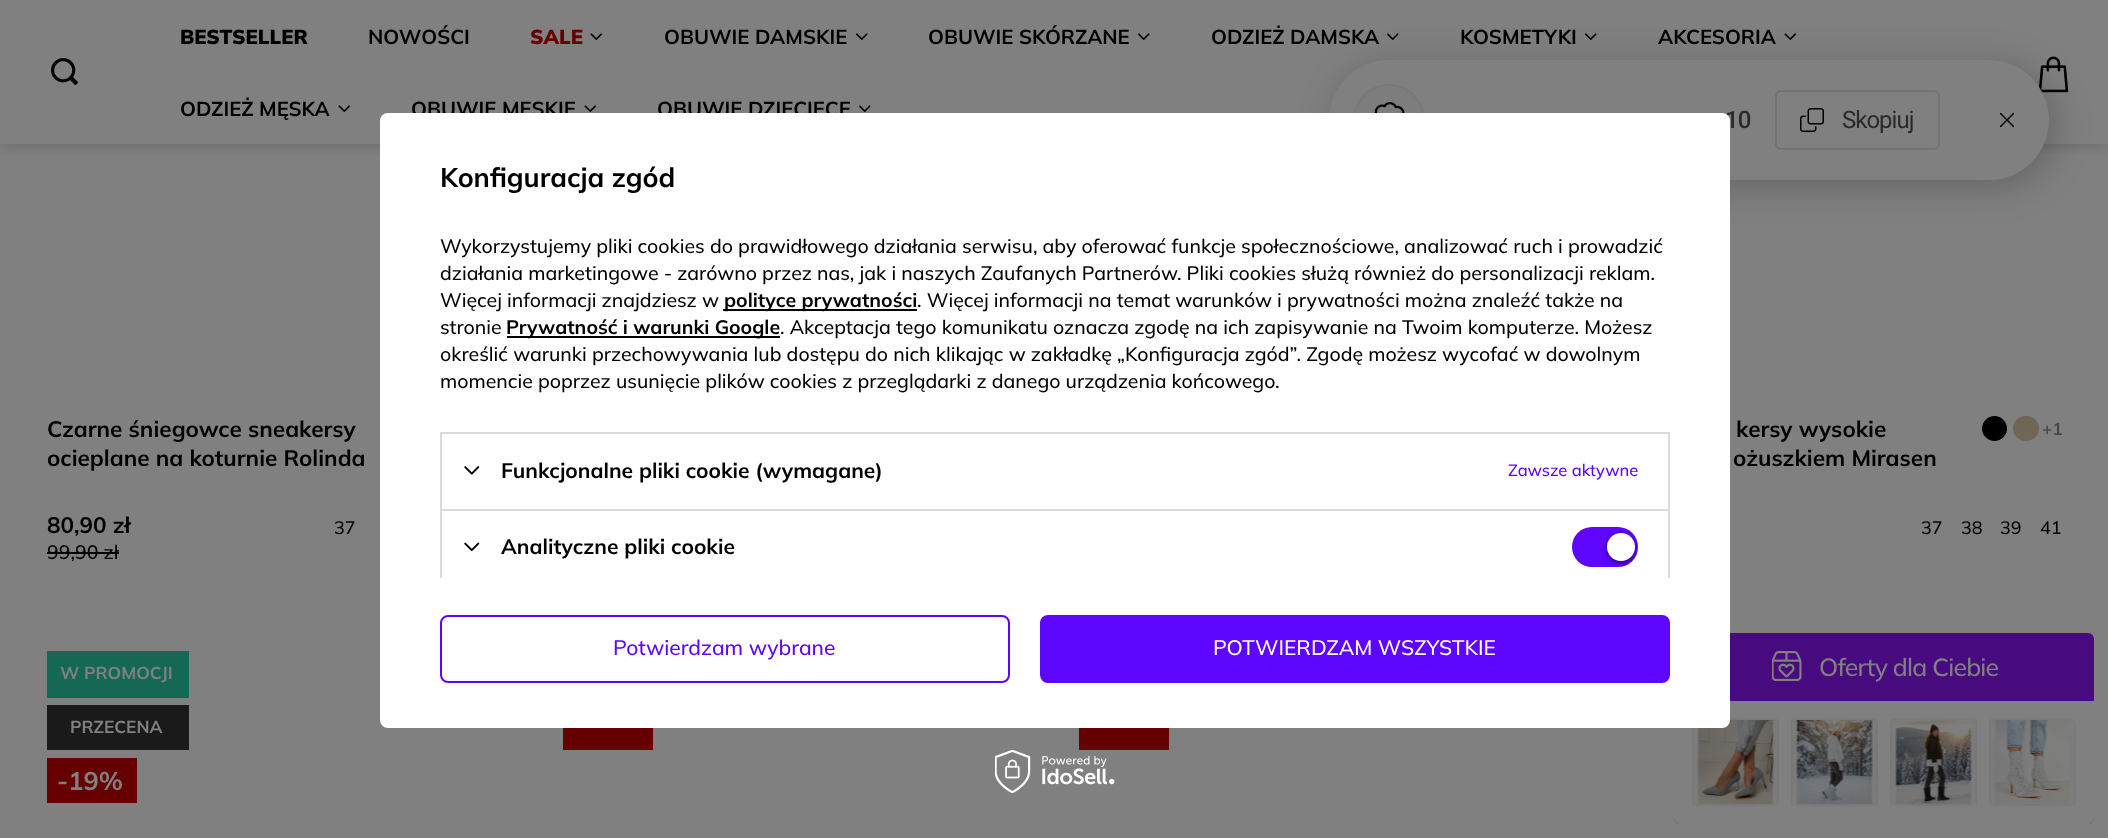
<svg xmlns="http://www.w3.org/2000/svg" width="2108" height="838">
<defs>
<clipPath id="clip1"><rect x="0" y="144" width="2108" height="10"/></clipPath>
</defs>
<rect width="100%" height="100%" fill="#808080"/>
<g clip-path="url(#clip1)">
<rect width="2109" height="144" fill="#00000033" filter="blur(7.5px)"/>
</g>
<image x="51" y="58" width="27" height="27" href="media/1.png"/>
<text x="180" y="44" style="font-family:Mulish;font-size:20.25px;font-weight:900;fill:#000">BESTSELLER</text>
<text x="368" y="44" style="font-family:Mulish;font-size:20.25px;font-weight:bold;fill:#000">NOWOŚCI</text>
<text x="530" y="44" style="font-family:Mulish;font-size:20.25px;font-weight:900;fill:#600">SALE</text>
<image x="590" y="33" width="12" height="8" href="media/2.png"/>
<text x="664" y="44" style="font-family:Mulish;font-size:20.25px;font-weight:bold;fill:#000">OBUWIE DAMSKIE</text>
<image x="856" y="33" width="12" height="8" href="media/3.png"/>
<text x="928" y="44" style="font-family:Mulish;font-size:20.25px;font-weight:bold;fill:#000">OBUWIE SKÓRZANE</text>
<image x="1138" y="33" width="12" height="8" href="media/3.png"/>
<text x="1211" y="44" style="font-family:Mulish;font-size:20.25px;font-weight:bold;fill:#000">ODZIEŻ DAMSKA</text>
<image x="1387" y="33" width="12" height="8" href="media/3.png"/>
<text x="1460" y="44" style="font-family:Mulish;font-size:20.25px;font-weight:bold;fill:#000">KOSMETYKI</text>
<image x="1585" y="33" width="12" height="8" href="media/3.png"/>
<text x="1658" y="44" style="font-family:Mulish;font-size:20.25px;font-weight:bold;fill:#000">AKCESORIA</text>
<image x="1784" y="33" width="12" height="8" href="media/2.png"/>
<text x="180" y="116" style="font-family:Mulish;font-size:20.25px;font-weight:bold;fill:#000">ODZIEŻ MĘSKA</text>
<image x="338" y="105" width="12" height="8" href="media/2.png"/>
<text x="411" y="116" style="font-family:Mulish;font-size:20.25px;font-weight:bold;fill:#000">OBUWIE MĘSKIE</text>
<image x="584" y="105" width="12" height="8" href="media/2.png"/>
<text x="657" y="116" style="font-family:Mulish;font-size:20.25px;font-weight:bold;fill:#000">OBUWIE DZIECIĘCE</text>
<image x="859" y="105" width="12" height="8" href="media/3.png"/>
<image x="2039" y="56" width="30" height="37" href="media/4.png"/>
<text x="47" y="437" style="font-family:Mulish;font-size:22.5px;font-weight:bold;fill:#000">Czarne śniegowce sneakersy</text>
<text x="47" y="466" style="font-family:Mulish;font-size:22.5px;font-weight:bold;fill:#000">ocieplane na koturnie Rolinda</text>
<text x="47" y="533" style="font-family:Mulish;font-size:22.5px;font-weight:bold;fill:#000">80,90 zł</text>
<text x="47" y="559" style="font-family:Mulish;font-size:19.5px;font-weight:500;fill:#000">99,90 zł</text>
<rect x="47" y="552" width="72" height="2" fill="#000"/>
<text x="334" y="534" style="font-family:Mulish;font-size:18px;font-weight:500;fill:#000">37</text>
<text x="1736" y="437" style="font-family:Mulish;font-size:22.5px;font-weight:bold;fill:#000">kersy wysokie</text>
<text x="1733" y="466" style="font-family:Mulish;font-size:22.5px;font-weight:bold;fill:#000">ożuszkiem Mirasen</text>
<circle cx="1994.5" cy="428.5" r="12.5" fill="#000"/>
<rect x="2013" y="416" width="26" height="25" rx="12.5" fill="#6f6753"/>
<text x="2042" y="435" style="font-family:Mulish;font-size:17.25px;font-weight:bold;fill:#494949">+1</text>
<text x="1921" y="534" style="font-family:Mulish;font-size:18px;font-weight:500;fill:#000">37</text>
<text x="1961" y="534" style="font-family:Mulish;font-size:18px;font-weight:500;fill:#000">38</text>
<text x="2000" y="534" style="font-family:Mulish;font-size:18px;font-weight:500;fill:#000">39</text>
<text x="2040" y="534" style="font-family:Mulish;font-size:18px;font-weight:500;fill:#000">41</text>
<rect x="47" y="651" width="142" height="47" fill="#156854"/>
<text x="60" y="679" style="font-family:Mulish;font-size:17.25px;font-weight:bold;fill:#808080">W PROMOCJI</text>
<rect x="47" y="705" width="142" height="45" fill="#1a1a1a"/>
<text x="70" y="733" style="font-family:Mulish;font-size:17.25px;font-weight:bold;fill:#808080">PRZECENA</text>
<rect x="47" y="758" width="90" height="45" fill="#600"/>
<text x="57" y="790" style="font-family:Mulish;font-size:25.5px;font-weight:bold;fill:#808080">-19%</text>
<rect x="563" y="728" width="90" height="22" fill="#600"/>
<rect x="1079" y="728" width="90" height="22" fill="#600"/>
<rect x="1335" y="66" width="720" height="120" rx="60" fill="#00000038" filter="blur(18px)"/>
<rect x="1329" y="60" width="720" height="120" rx="60" fill="#808080"/>
<circle cx="1389" cy="120" r="35" fill="#7d7d7d" stroke="#797979" stroke-width="2"/>
<image x="1374" y="102" width="31" height="11" href="media/5.png"/>
<text x="1725" y="128" style="font-family:Roboto;font-size:24px;font-weight:500;letter-spacing:-1px;fill:#2a2a2a">10</text>
<rect x="1776" y="91" width="163" height="58" rx="5" fill="none" stroke="#737373" stroke-width="2"/>
<image x="1800" y="108" width="24" height="24" href="media/6.png"/>
<text x="1842" y="128" style="font-family:Roboto;font-size:24px;letter-spacing:-1px;fill:#2a2a2a">Skopiuj</text>
<image x="1999" y="112" width="16" height="16" href="media/7.png"/>
<rect x="2020" y="750" width="73" height="73" rx="7" fill="none" stroke="#656767" stroke-width="2"/>
<rect x="1674" y="633" width="420" height="191" rx="6" fill="#480a7f"/>
<path d="M1674 701h420v117c0 3.5-2.5 6-6 6h-408c-3.5 0-6-2.5-6-6z" fill="#808080"/>
<rect x="1693" y="720" width="85" height="85" rx="5" fill="none" stroke="#7d7d7d" stroke-width="2"/>
<image x="1692" y="718" width="87" height="88" href="media/12.png"/>
<rect x="380" y="113" width="1350" height="615" rx="8" fill="#fff"/>
<text x="440" y="187" style="font-family:Mulish;font-size:27px;font-weight:bold;fill:#000">Konfiguracja zgód</text>
<text x="440" y="253" style="font-family:Mulish;font-size:19.5px;font-weight:500;fill:#000">Wykorzystujemy pliki cookies do prawidłowego działania serwisu, aby oferować funkcje społecznościowe, analizować ruch i prowadzić</text>
<text x="440" y="280" style="font-family:Mulish;font-size:19.5px;font-weight:500;fill:#000">działania marketingowe - zarówno przez nas, jak i naszych Zaufanych Partnerów. Pliki cookies służą również do personalizacji reklam.</text>
<text x="440" y="307" style="font-family:Mulish;font-size:19.5px;font-weight:500;fill:#000">Więcej informacji znajdziesz w</text>
<rect x="723" y="309" width="194" height="2" fill="#000"/>
<text x="724" y="307" style="font-family:Mulish;font-size:19.5px;font-weight:bold;fill:#000">polityce prywatności</text>
<text x="917" y="307" style="font-family:Mulish;font-size:19.5px;font-weight:500;fill:#000">. Więcej informacji na temat warunków i prywatności można znaleźć także na</text>
<text x="440" y="334" style="font-family:Mulish;font-size:19.5px;font-weight:500;fill:#000">stronie</text>
<rect x="507" y="336" width="273" height="2" fill="#000"/>
<text x="506" y="334" style="font-family:Mulish;font-size:19.5px;font-weight:bold;fill:#000">Prywatność i warunki Google</text>
<text x="780" y="334" style="font-family:Mulish;font-size:19.5px;font-weight:500;fill:#000">. Akceptacja tego komunikatu oznacza zgodę na ich zapisywanie na Twoim komputerze. Możesz</text>
<text x="440" y="361" style="font-family:Mulish;font-size:19.5px;font-weight:500;fill:#000">określić warunki przechowywania lub dostępu do nich klikając w zakładkę „Konfiguracja zgód”. Zgodę możesz wycofać w dowolnym</text>
<text x="440" y="388" style="font-family:Mulish;font-size:19.5px;font-weight:500;fill:#000">momencie poprzez usunięcie plików cookies z przeglądarki z danego urządzenia końcowego.</text>
<rect x="440" y="432" width="1230" height="2" fill="#dbdbdb"/>
<rect x="1668" y="432" width="2" height="77" fill="#dbdbdb"/>
<rect x="440" y="432" width="2" height="77" fill="#dbdbdb"/>
<image x="464" y="466" width="16" height="9" href="media/8.png"/>
<text x="501" y="478" style="font-family:Mulish;font-size:21px;font-weight:bold;fill:#000">Funkcjonalne pliki cookie (wymagane)</text>
<text x="1508" y="476" style="font-family:Mulish;font-size:16.5px;font-weight:500;fill:#5d05ff">Zawsze aktywne</text>
<rect x="440" y="509" width="1230" height="2" fill="#dbdbdb"/>
<rect x="1668" y="509" width="2" height="69" fill="#dbdbdb"/>
<rect x="440" y="509" width="2" height="69" fill="#dbdbdb"/>
<image x="464" y="542" width="16" height="9" href="media/9.png"/>
<text x="501" y="554" style="font-family:Mulish;font-size:21px;font-weight:bold;fill:#000">Analityczne pliki cookie</text>
<rect x="1572" y="527" width="66" height="40" rx="20" fill="#5d05ff"/>
<rect x="1607" y="534" width="28" height="29" rx="14" fill="#0000008f" filter="blur(2px)"/>
<circle cx="1621" cy="547" r="14" fill="#fff"/>
<rect x="441" y="616" width="568" height="66" rx="7" fill="none" stroke="#5d05ff" stroke-width="2"/>
<text x="613" y="655" style="font-family:Mulish;font-size:21px;font-weight:500;fill:#5d05ff">Potwierdzam wybrane</text>
<rect x="1041" y="616" width="628" height="66" rx="7" fill="#5d05ff" stroke="#5d05ff" stroke-width="2"/>
<text x="1213" y="655" style="font-family:Mulish;font-size:21px;font-weight:500;fill:#fff">POTWIERDZAM WSZYSTKIE</text>
<image x="995" y="750" width="120" height="43" href="media/10.png"/>
<image x="1772" y="651" width="30" height="30" href="media/11.png"/>
<text x="1819" y="676" style="font-family:Mulish;font-size:24.75px;font-weight:500;letter-spacing:-0.8px;fill:#808080">Oferty dla Ciebie</text>
<rect x="1792" y="720" width="85" height="85" rx="5" fill="none" stroke="#7d7d7d" stroke-width="2"/>
<image x="1791" y="718" width="87" height="88" href="media/13.png"/>
<rect x="1891" y="720" width="85" height="85" rx="5" fill="none" stroke="#7d7d7d" stroke-width="2"/>
<image x="1890" y="718" width="87" height="88" href="media/14.png"/>
<rect x="1990" y="720" width="85" height="85" rx="5" fill="none" stroke="#7d7d7d" stroke-width="2"/>
<image x="1989" y="718" width="87" height="88" href="media/15.png"/>
</svg>
